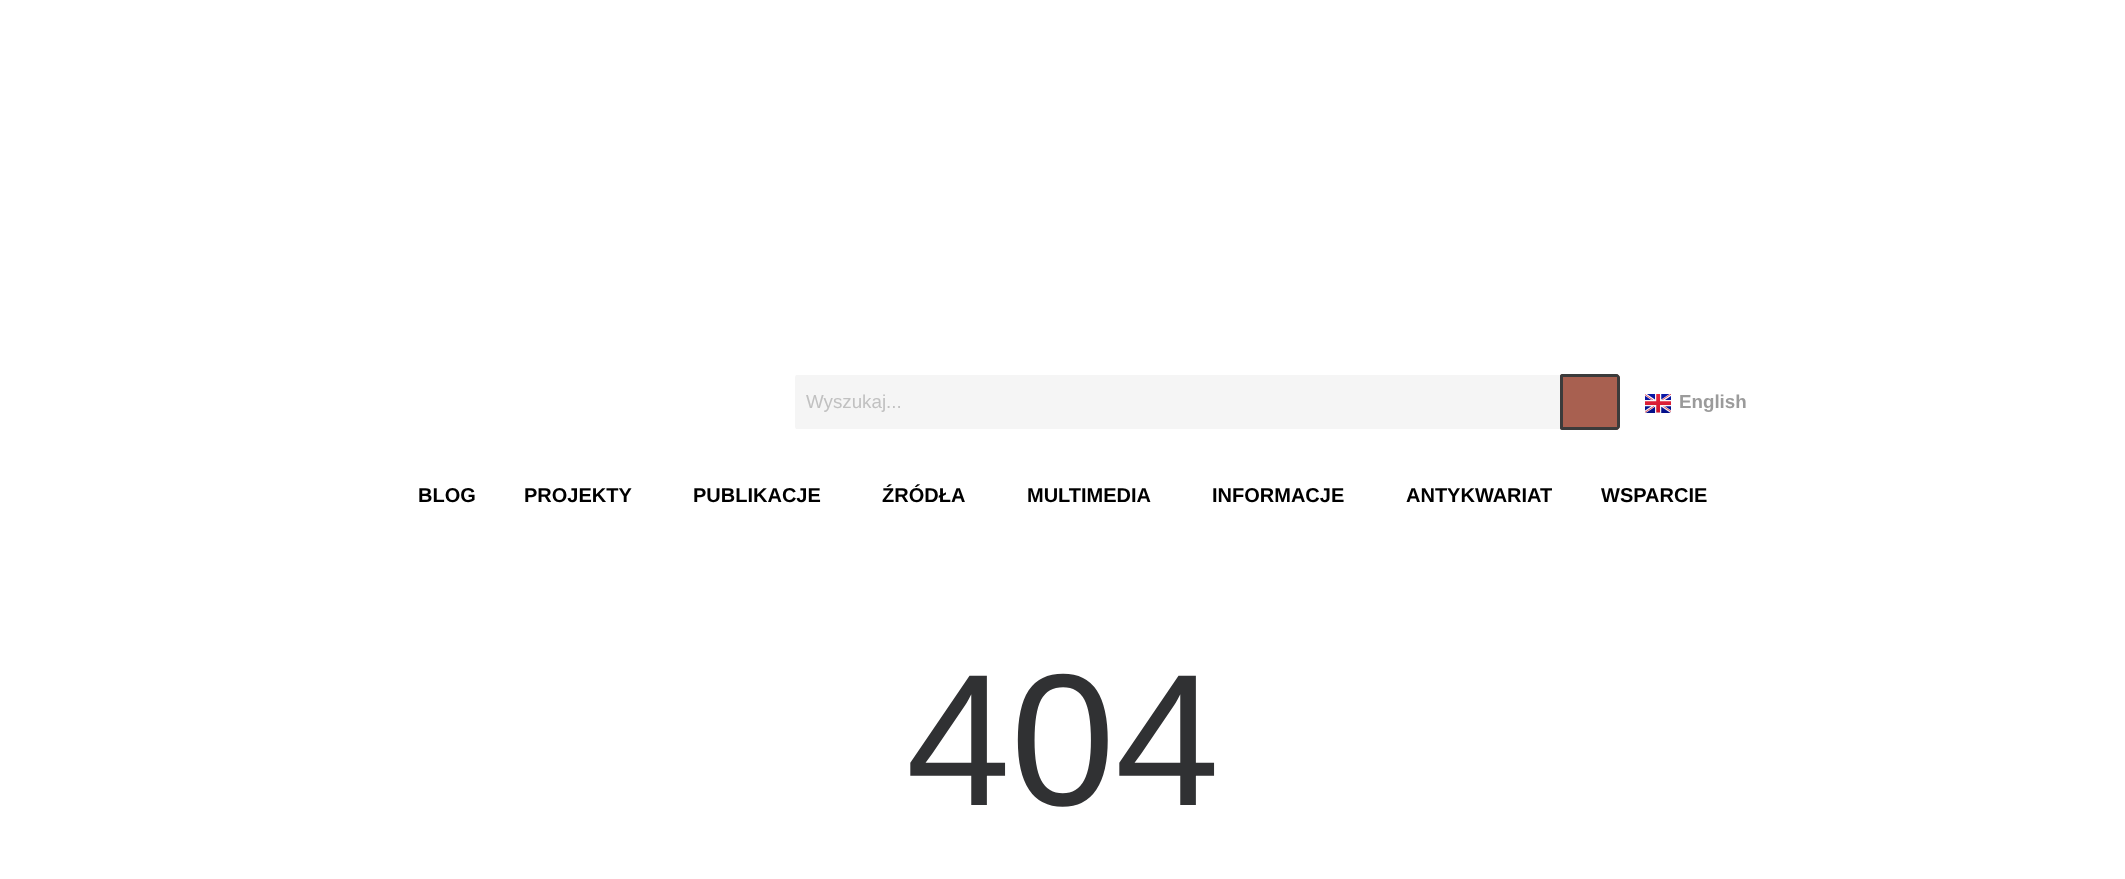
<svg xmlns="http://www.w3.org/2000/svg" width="2125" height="879">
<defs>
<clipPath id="clip1"><rect x="795" y="374" width="825" height="56" rx="4"/></clipPath>
</defs>
<rect width="100%" height="100%" fill="#fff"/>
<g clip-path="url(#clip1)">
<rect x="795" y="375" width="765" height="54" fill="#f5f5f5"/>
</g>
<text x="806" y="408" style="font-family:Liberation Sans;font-size:18.75px;fill:#c1c1c1">Wyszukaj...</text>
<path d="M1562.5 374h53.5c2 0 4 2 4 4v48c0 2-2 4-4 4h-53.5c-1.5 0-2.5-1-2.5-2.5v-51c0-1.5 1-2.5 2.5-2.5z" fill="#a86050"/>
<path d="M1562 374c-1 0-2 1-2 2v52c0 1 1 2 2 2h54c2 0 4-2 4-4v-48c0-2-2-4-4-4zm1 3v50h54v-50z" fill="#3b3b3b" fill-rule="evenodd"/>
<image x="1645" y="394" width="26" height="19" href="media/1.png"/>
<text x="1679" y="408" style="font-family:Liberation Sans;font-size:18.75px;font-weight:bold;fill:#9b9b9b">English</text>
<text x="418" y="502" style="font-family:Liberation Sans;font-size:20px;font-weight:bold;fill:#000">BLOG</text>
<text x="524" y="502" style="font-family:Liberation Sans;font-size:20px;font-weight:bold;fill:#000">PROJEKTY</text>
<text x="693" y="502" style="font-family:Liberation Sans;font-size:20px;font-weight:bold;fill:#000">PUBLIKACJE</text>
<text x="882" y="502" style="font-family:Liberation Sans;font-size:20px;font-weight:bold;fill:#000">ŹRÓDŁA</text>
<text x="1027" y="502" style="font-family:Liberation Sans;font-size:20px;font-weight:bold;fill:#000">MULTIMEDIA</text>
<text x="1212" y="502" style="font-family:Liberation Sans;font-size:20px;font-weight:bold;fill:#000">INFORMACJE</text>
<text x="1406" y="502" style="font-family:Liberation Sans;font-size:20px;font-weight:bold;fill:#000">ANTYKWARIAT</text>
<text x="1601" y="502" style="font-family:Liberation Sans;font-size:20px;font-weight:bold;fill:#000">WSPARCIE</text>
<text x="906" y="805" style="font-family:Liberation Sans;font-size:188px;fill:#303133">404</text>
</svg>
